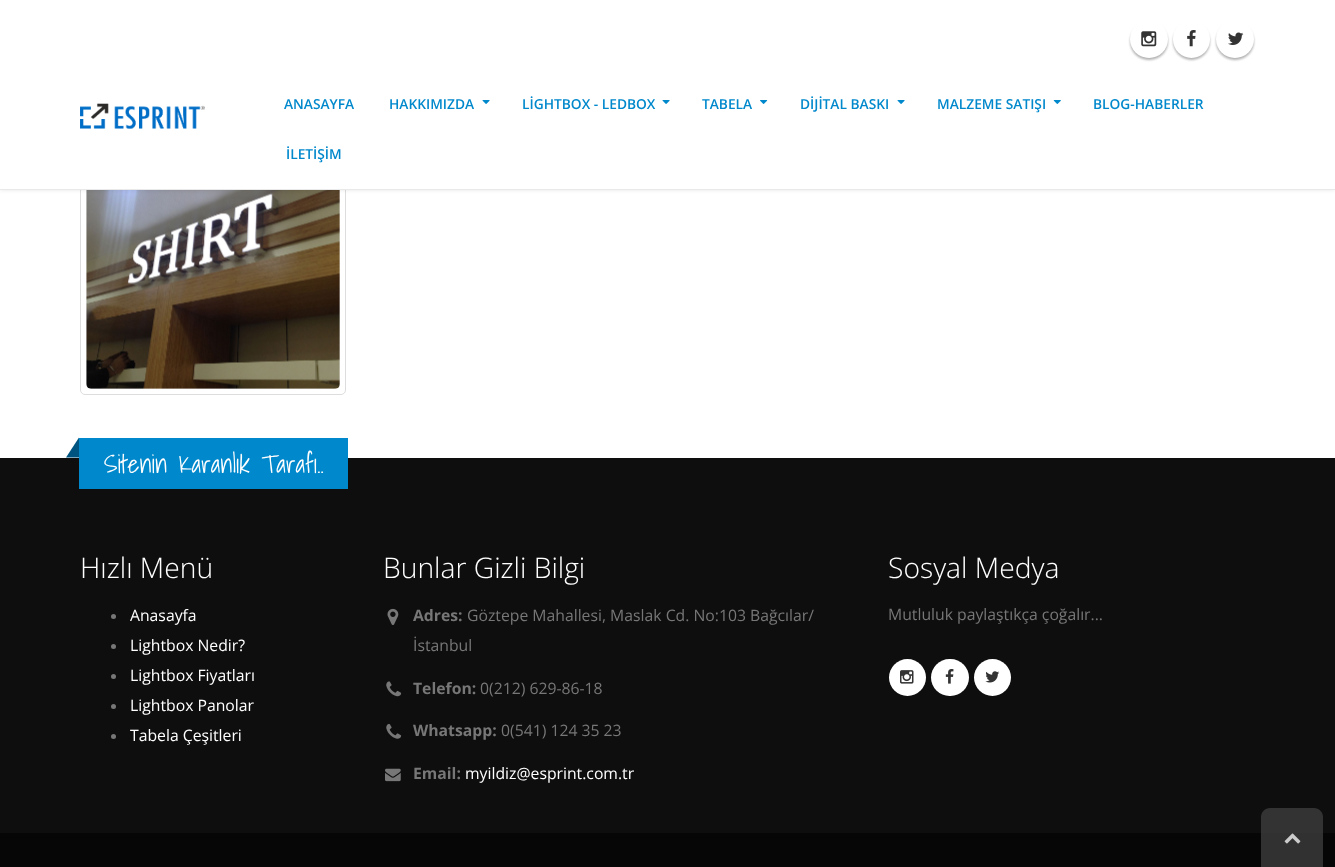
<svg xmlns="http://www.w3.org/2000/svg" width="1335" height="867">
<rect width="100%" height="100%" fill="#fff"/>
<rect x="80.5" y="130.5" width="265" height="264" rx="4.5" fill="none" stroke="#ddd"/>
<image x="86" y="190" width="254" height="199" href="media/1.png"/>
<rect y="-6" width="1335" height="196" fill="#0000001a" filter="blur(2px)"/>
<rect width="1335" height="189" fill="#fff"/>
<rect y="189" width="1335" height="1" fill="#e9e9e9"/>
<image x="80" y="103" width="125" height="26" href="media/2.png"/>
<rect x="1130" y="23" width="38" height="37" rx="18.5" fill="#0000004d" filter="blur(1px)"/>
<circle cx="1149" cy="39" r="19" fill="#fff"/>
<image x="1141" y="31" width="16" height="16" href="media/3.png"/>
<rect x="1173" y="23" width="37" height="37" rx="18.5" fill="#0000004d" filter="blur(1px)"/>
<rect x="1173" y="20" width="37" height="38" rx="18.5" fill="#fff"/>
<image x="1187" y="30" width="9" height="17" href="media/4.png"/>
<rect x="1216" y="23" width="38" height="37" rx="18.5" fill="#0000004d" filter="blur(1px)"/>
<circle cx="1235" cy="39" r="19" fill="#fff"/>
<image x="1228" y="32" width="16" height="13" href="media/5.png"/>
<text x="284" y="109" style="font-family:Open Sans;font-size:13.75px;font-weight:600;fill:#08c">ANASAYFA</text>
<text x="389" y="109" style="font-family:Open Sans;font-size:13.75px;font-weight:600;fill:#08c">HAKKIMIZDA</text>
<image x="482" y="100" width="8" height="4" href="media/6.png"/>
<text x="522" y="109" style="font-family:Open Sans;font-size:13.75px;font-weight:600;fill:#08c">LİGHTBOX - LEDBOX</text>
<image x="662" y="100" width="8" height="4" href="media/6.png"/>
<text x="702" y="109" style="font-family:Open Sans;font-size:13.75px;font-weight:600;fill:#08c">TABELA</text>
<image x="760" y="100" width="8" height="4" href="media/7.png"/>
<text x="800" y="109" style="font-family:Open Sans;font-size:13.75px;font-weight:600;fill:#08c">DİJİTAL BASKI</text>
<image x="897" y="100" width="8" height="4" href="media/6.png"/>
<text x="937" y="109" style="font-family:Open Sans;font-size:13.75px;font-weight:600;fill:#08c">MALZEME SATIŞI</text>
<image x="1053" y="100" width="8" height="4" href="media/8.png"/>
<text x="1093" y="109" style="font-family:Open Sans;font-size:13.75px;font-weight:600;fill:#08c">BLOG-HABERLER</text>
<text x="286" y="159" style="font-family:Open Sans;font-size:13.75px;font-weight:600;fill:#08c">İLETİŞİM</text>
<rect y="458" width="1335" height="375" fill="#0e0e0e"/>
<rect x="79" y="438" width="269" height="51" fill="#08c"/>
<path d="M79 437.5v20h-13z" fill="#005580"/>
<text x="104" y="473" style="font-family:Shadows Into Light;font-size:25.25px;fill:#fff">Sitenin Karanlık Tarafı..</text>
<text x="80" y="578" style="font-family:Open Sans;font-size:28.25px;font-weight:300;fill:#fff">Hızlı Menü</text>
<circle cx="113.5" cy="616.5" r="2.5" fill="#777"/>
<text x="130" y="621" style="font-family:Open Sans;font-size:15.75px;fill:#fff">Anasayfa</text>
<circle cx="113.5" cy="646.5" r="2.5" fill="#777"/>
<text x="130" y="651" style="font-family:Open Sans;font-size:15.75px;fill:#fff">Lightbox Nedir?</text>
<circle cx="113.5" cy="676.5" r="2.5" fill="#777"/>
<text x="130" y="681" style="font-family:Open Sans;font-size:15.75px;fill:#fff">Lightbox Fiyatları</text>
<circle cx="113.5" cy="706.5" r="2.5" fill="#777"/>
<text x="130" y="711" style="font-family:Open Sans;font-size:15.75px;fill:#fff">Lightbox Panolar</text>
<circle cx="113.5" cy="736.5" r="2.5" fill="#777"/>
<text x="130" y="741" style="font-family:Open Sans;font-size:15.75px;fill:#fff">Tabela Çeşitleri</text>
<text x="383" y="578" style="font-family:Open Sans;font-size:28.25px;font-weight:300;fill:#fff">Bunlar Gizli Bilgi</text>
<image x="387" y="608" width="12" height="17" href="media/9.png"/>
<text x="413" y="621" style="font-family:Open Sans;font-size:15.75px;font-weight:bold;fill:#777">Adres:</text>
<text x="467" y="621" style="font-family:Open Sans;font-size:15.75px;fill:#777">Göztepe Mahallesi, Maslak Cd. No:103 Bağcılar/</text>
<text x="413" y="651" style="font-family:Open Sans;font-size:15.75px;fill:#777">İstanbul</text>
<image x="386" y="681" width="16" height="16" href="media/10.png"/>
<text x="413" y="694" style="font-family:Open Sans;font-size:15.75px;font-weight:bold;fill:#777">Telefon:</text>
<text x="480" y="694" style="font-family:Open Sans;font-size:15.75px;fill:#777">0(212) 629-86-18</text>
<image x="386" y="723" width="16" height="16" href="media/11.png"/>
<text x="413" y="736" style="font-family:Open Sans;font-size:15.75px;font-weight:bold;fill:#777">Whatsapp:</text>
<text x="501" y="736" style="font-family:Open Sans;font-size:15.75px;fill:#777">0(541) 124 35 23</text>
<image x="385" y="768" width="16" height="14" href="media/12.png"/>
<text x="413" y="779" style="font-family:Open Sans;font-size:15.75px;font-weight:bold;fill:#777">Email:</text>
<text x="465" y="779" style="font-family:Open Sans;font-size:15.75px;fill:#fff">myildiz@esprint.com.tr</text>
<text x="888" y="578" style="font-family:Open Sans;font-size:28.25px;font-weight:300;fill:#fff">Sosyal Medya</text>
<text x="888" y="620" style="font-family:Open Sans;font-size:15.75px;fill:#777">Mutluluk paylaştıkça çoğalır...</text>
<circle cx="907.5" cy="677.5" r="18.5" fill="#fff"/>
<image x="900" y="670" width="14" height="14" href="media/13.png"/>
<rect x="931" y="659" width="38" height="37" rx="18.5" fill="#fff"/>
<image x="945" y="669" width="9" height="15" href="media/14.png"/>
<circle cx="992.5" cy="677.5" r="18.5" fill="#fff"/>
<image x="985" y="671" width="15" height="12" href="media/15.png"/>
<rect y="833" width="1335" height="34" fill="#060606"/>
<path d="M1270 808h44c5 0 9 4 9 9v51h-62v-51c0-5 4-9 9-9z" fill="#404040bf"/>
<image x="1284" y="833" width="17" height="11" href="media/16.png"/>
</svg>
